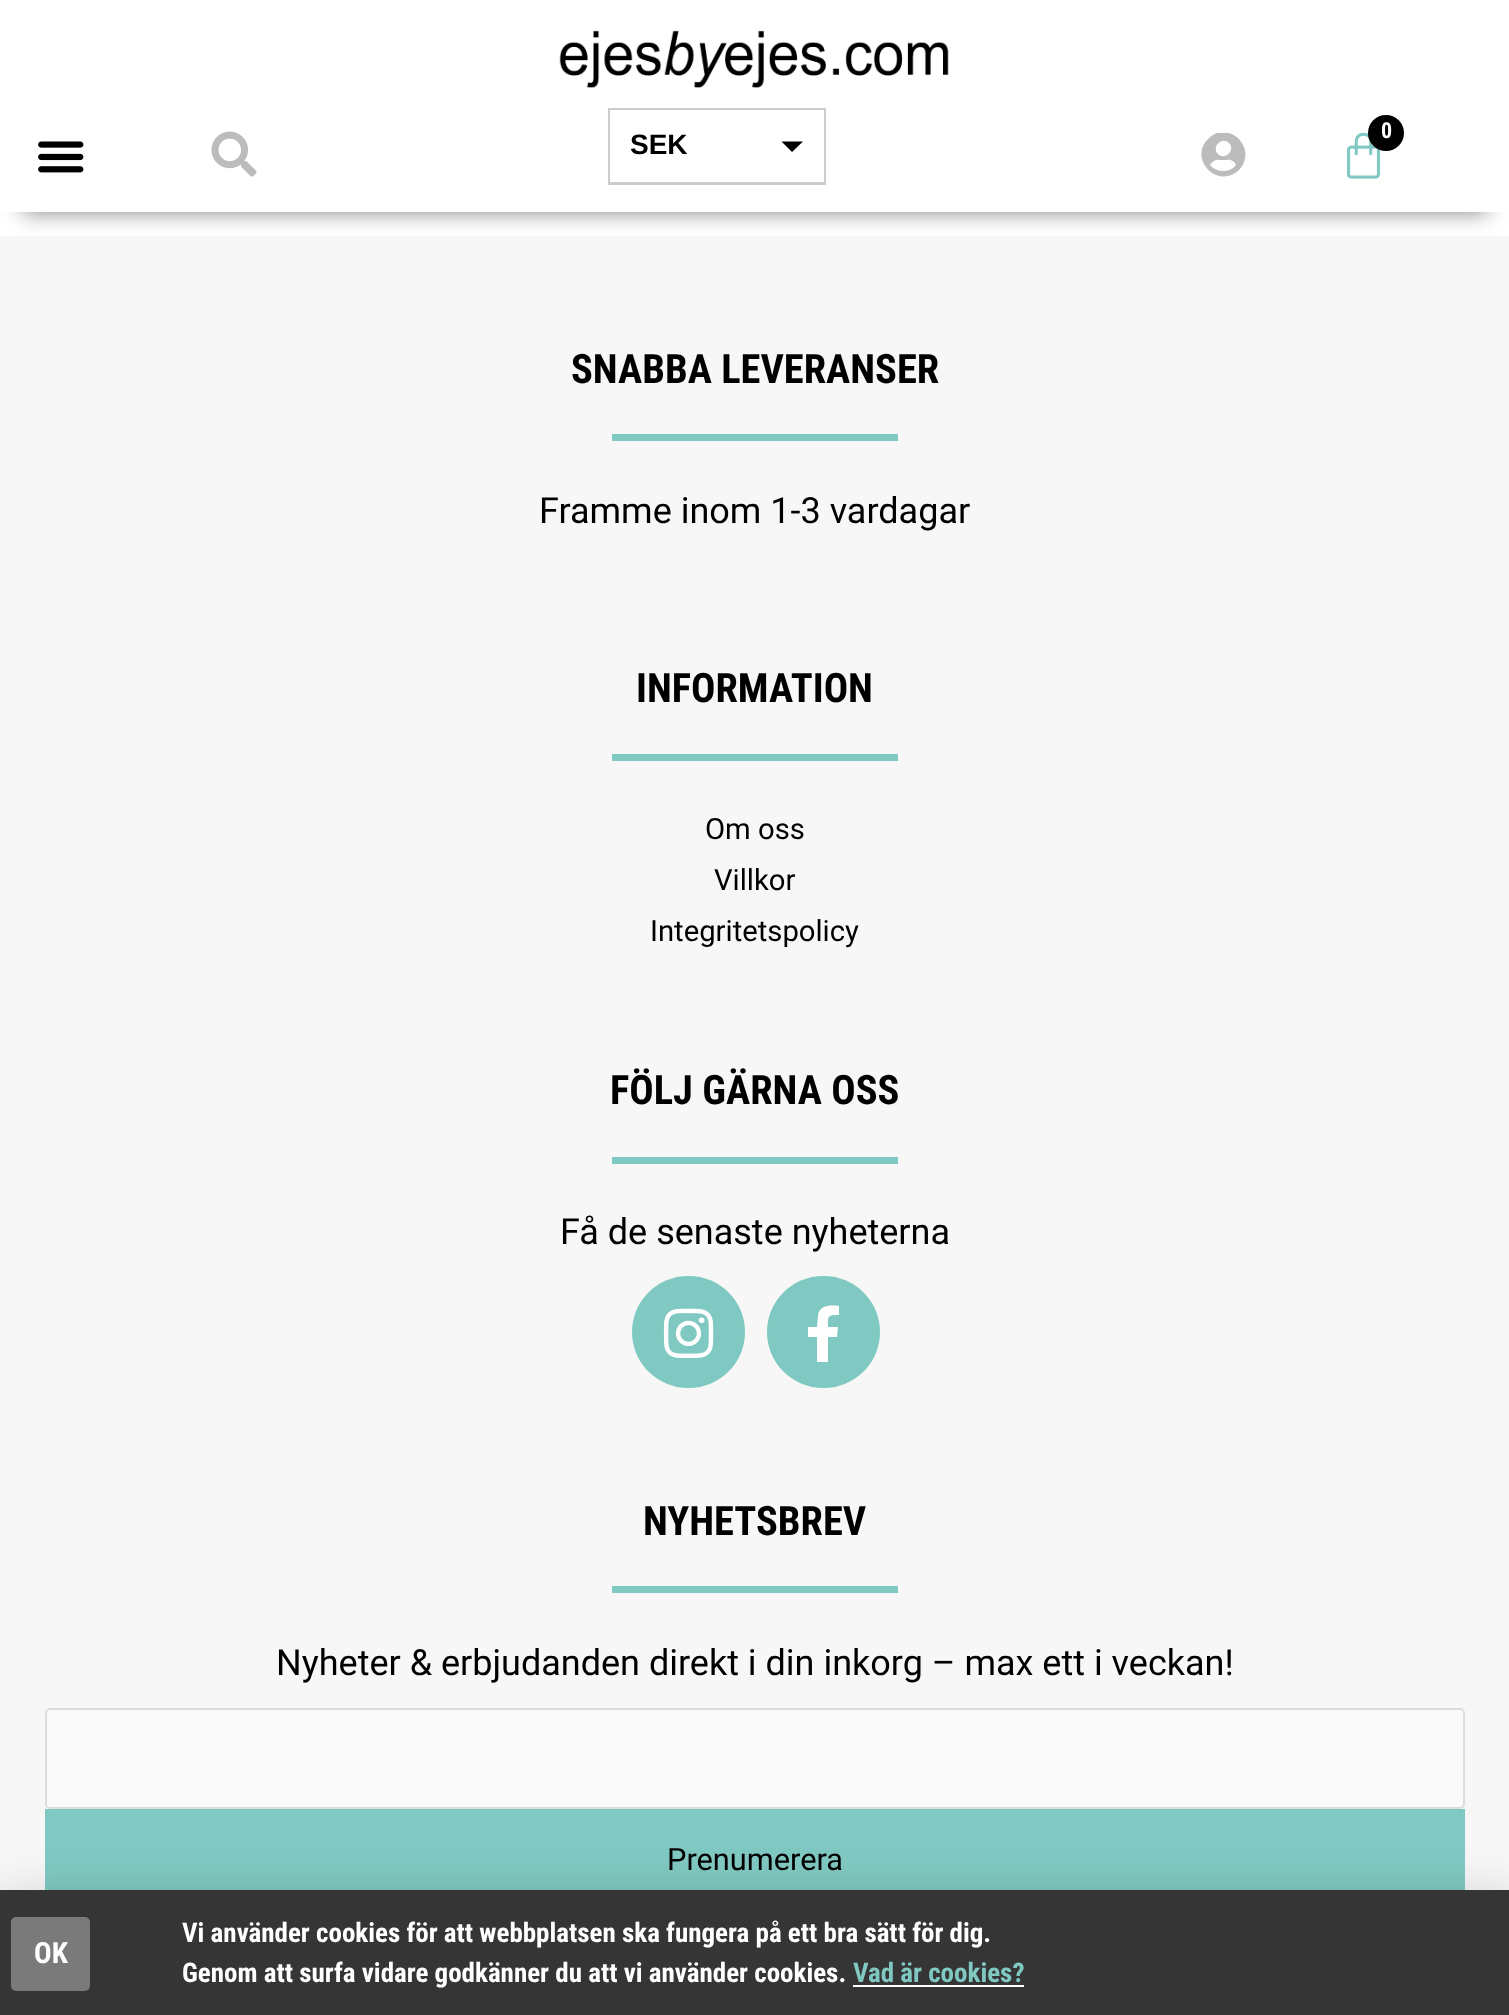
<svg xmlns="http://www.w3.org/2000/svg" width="1509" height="2015">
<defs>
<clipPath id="clip1"><rect x="902" y="133" width="365" height="45"/></clipPath>
</defs>
<rect width="100%" height="100%" fill="#fff"/>
<rect y="236" width="1509" height="1654" fill="#f7f7f7"/>
<rect x="23" y="45" width="1464" height="167" fill="#00000080" filter="blur(11px)"/>
<rect y="22" width="1509" height="190" fill="#fff"/>
<image x="559" y="30" width="390" height="58" href="media/1.png"/>
<image x="38" y="141" width="46" height="32" href="media/2.png"/>
<image x="211" y="131" width="46" height="46" href="media/3.png"/>
<rect x="608" y="108" width="218" height="77" fill="#ccc"/>
<rect x="610" y="110" width="214" height="72" fill="#fff"/>
<text x="630" y="154" style="font-family:Liberation Sans;font-size:28px;font-weight:bold;fill:#000">SEK</text>
<path d="M781.5 141.5h21.5l-11 10.5z" fill="#000"/>
<g clip-path="url(#clip1)">
<path d="M1208 139c20-21 51 10 31 31c-21 20-51-11-31-31zm21 4c-7-7-18 4-11 11c7 7 18-4 11-11zm-19 22c7 8 20 8 26 0c-1-3-5-6-9-5h-4h-4c-3-1-7 2-9 5z" fill="#bcbcbc"/>
</g>
<image x="1347" y="132" width="33" height="47" href="media/4.png"/>
<circle cx="1386" cy="133" r="18" fill="#000"/>
<text x="1381" y="138" style="font-family:Roboto Condensed;font-size:22px;font-weight:bold;fill:#fff">0</text>
<text x="571" y="383" style="font-family:Roboto Condensed;font-size:40.5px;font-weight:bold;fill:#000">SNABBA LEVERANSER</text>
<rect x="612" y="434" width="286" height="7" fill="#80c9c2"/>
<text x="539" y="523" style="font-family:Roboto;font-size:36px;fill:#000">Framme inom 1-3 vardagar</text>
<text x="636" y="702" style="font-family:Roboto Condensed;font-size:40.5px;font-weight:bold;fill:#000">INFORMATION</text>
<rect x="612" y="754" width="286" height="7" fill="#80c9c2"/>
<text x="705" y="839" style="font-family:Roboto;font-size:29.25px;fill:#000">Om oss</text>
<text x="714" y="890" style="font-family:Roboto;font-size:29.25px;fill:#000">Villkor</text>
<text x="650" y="941" style="font-family:Roboto;font-size:29.25px;fill:#000">Integritetspolicy</text>
<text x="610" y="1104" style="font-family:Roboto Condensed;font-size:40.5px;font-weight:bold;fill:#000">FÖLJ GÄRNA OSS</text>
<rect x="612" y="1157" width="286" height="7" fill="#80c9c2"/>
<text x="560" y="1244" style="font-family:Roboto;font-size:36px;fill:#000">Få de senaste nyheterna</text>
<rect x="632" y="1276" width="113" height="112" rx="56" fill="#80c9c2"/>
<image x="663" y="1308" width="51" height="50" href="media/5.png"/>
<rect x="767" y="1276" width="113" height="112" rx="56" fill="#80c9c2"/>
<path d="M837 1337h-9v25h-11v-25h-9v-10h9l1-11c1-11 12-11 21-10v9c-12 0-11 1-11 12h10z" fill="#fff"/>
<text x="643" y="1535" style="font-family:Roboto Condensed;font-size:40.5px;font-weight:bold;fill:#000">NYHETSBREV</text>
<rect x="612" y="1586" width="286" height="7" fill="#80c9c2"/>
<text x="276" y="1675" style="font-family:Roboto;font-size:36px;fill:#000">Nyheter &amp; erbjudanden direkt i din inkorg – max ett i veckan!</text>
<rect x="46" y="1709" width="1418" height="99" rx="4" fill="#fafafa" stroke="#ddd" stroke-width="2"/>
<rect x="45" y="1809" width="1420" height="81" fill="#80c9c2"/>
<text x="667" y="1870" style="font-family:Roboto;font-size:30.75px;fill:#000">Prenumerera</text>
<rect x="-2" y="1901" width="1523" height="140" fill="#00000033" filter="blur(26px)"/>
<rect y="1890" width="1509" height="125" fill="#353535"/>
<rect x="11" y="1917" width="79" height="74" rx="5" fill="#7a7a7a"/>
<text x="34" y="1963" style="font-family:Roboto Condensed;font-size:29.25px;font-weight:bold;fill:#fff">OK</text>
<text x="182" y="1942" style="font-family:Roboto Condensed;font-size:27px;font-weight:bold;fill:#fff">Vi använder cookies för att webbplatsen ska fungera på ett bra sätt för dig.</text>
<text x="182" y="1982" style="font-family:Roboto Condensed;font-size:27px;font-weight:bold;fill:#fff">Genom att surfa vidare godkänner du att vi använder cookies.</text>
<text x="853" y="1982" style="font-family:Roboto Condensed;font-size:27px;font-weight:bold;fill:#80c9c2">Vad är cookies?</text>
<rect x="853" y="1985" width="171" height="2" fill="#fff"/>
</svg>
